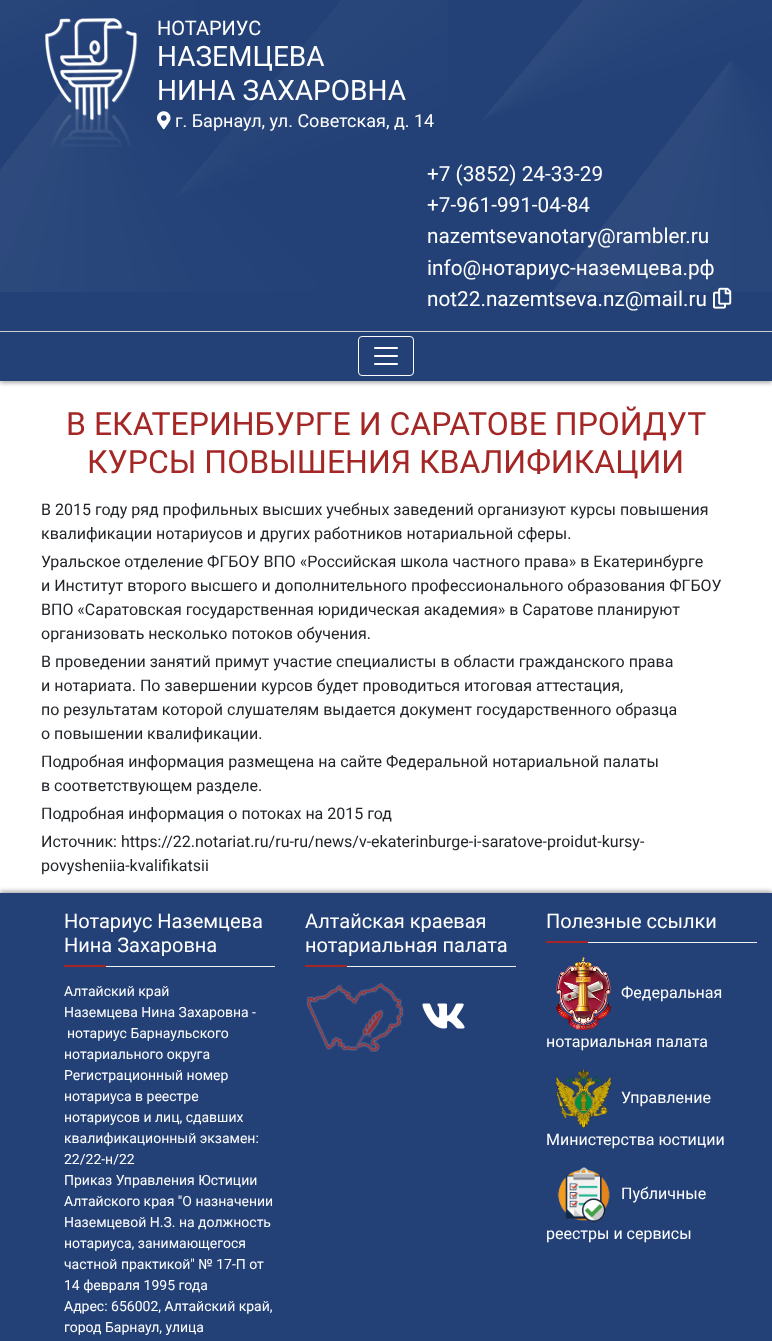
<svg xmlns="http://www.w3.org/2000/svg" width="772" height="1341">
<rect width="100%" height="100%" fill="#fff"/>
<rect y="2" width="772" height="381" fill="#00000054" filter="blur(2px)"/>
<rect width="772" height="381" fill="#234177"/>
<image x="483" y="0" width="289" height="292" href="media/1.png"/>
<image x="0" y="0" width="448" height="292" href="media/2.png"/>
<image x="45" y="18" width="93" height="129" href="media/3.png"/>
<text x="157" y="35" style="font-family:Roboto;font-size:20px;fill:#fff">НОТАРИУС</text>
<text x="157" y="66" style="font-family:Roboto;font-size:28px;fill:#fff">НАЗЕМЦЕВА</text>
<text x="157" y="100" style="font-family:Roboto;font-size:28px;fill:#fff">НИНА ЗАХАРОВНА</text>
<image x="157" y="111" width="14" height="19" href="media/4.png"/>
<text x="175" y="127" style="font-family:Roboto;font-size:18px;fill:#fff">г. Барнаул, ул. Советская, д. 14</text>
<text x="427" y="181" style="font-family:Roboto;font-size:20.75px;fill:#fff">+7 (3852) 24-33-29</text>
<text x="427" y="212" style="font-family:Roboto;font-size:20.75px;fill:#fff">+7-961-991-04-84</text>
<text x="427" y="243" style="font-family:Roboto;font-size:20.75px;fill:#fff">nazemtsevanotary@rambler.ru</text>
<text x="427" y="275" style="font-family:Roboto;font-size:20.75px;fill:#fff">info@нотариус-наземцева.рф</text>
<text x="427" y="306" style="font-family:Roboto;font-size:20.75px;fill:#fff">not22.nazemtseva.nz@mail.ru</text>
<image x="713" y="287" width="19" height="22" href="media/5.png"/>
<rect y="331" width="772" height="1" fill="#cfcfcf"/>
<rect x="358.5" y="336.5" width="55" height="39" rx="3.5" fill="none" stroke="#fff"/>
<image x="374" y="347" width="24" height="18" href="media/6.png"/>
<text x="66" y="435" style="font-family:Roboto;font-size:32px;fill:#a42625">В ЕКАТЕРИНБУРГЕ И САРАТОВЕ ПРОЙДУТ</text>
<text x="87" y="473" style="font-family:Roboto;font-size:32px;fill:#a42625">КУРСЫ ПОВЫШЕНИЯ КВАЛИФИКАЦИИ</text>
<text x="41" y="515" style="font-family:Roboto;font-size:16px;fill:#212529">В 2015 году ряд профильных высших учебных заведений организуют курсы повышения</text>
<text x="41" y="539" style="font-family:Roboto;font-size:16px;fill:#212529">квалификации нотариусов и других работников нотариальной сферы.</text>
<text x="41" y="567" style="font-family:Roboto;font-size:16px;fill:#212529">Уральское отделение ФГБОУ ВПО «Российская школа частного права» в Екатеринбурге</text>
<text x="41" y="591" style="font-family:Roboto;font-size:16px;fill:#212529">и Институт второго высшего и дополнительного профессионального образования ФГБОУ</text>
<text x="41" y="615" style="font-family:Roboto;font-size:16px;fill:#212529">ВПО «Саратовская государственная юридическая академия» в Саратове планируют</text>
<text x="41" y="639" style="font-family:Roboto;font-size:16px;fill:#212529">организовать несколько потоков обучения.</text>
<text x="41" y="667" style="font-family:Roboto;font-size:16px;fill:#212529">В проведении занятий примут участие специалисты в области гражданского права</text>
<text x="41" y="691" style="font-family:Roboto;font-size:16px;fill:#212529">и нотариата. По завершении курсов будет проводиться итоговая аттестация,</text>
<text x="41" y="715" style="font-family:Roboto;font-size:16px;fill:#212529">по результатам которой слушателям выдается документ государственного образца</text>
<text x="41" y="739" style="font-family:Roboto;font-size:16px;fill:#212529">о повышении квалификации.</text>
<text x="41" y="767" style="font-family:Roboto;font-size:16px;fill:#212529">Подробная информация размещена на сайте Федеральной нотариальной палаты</text>
<text x="41" y="791" style="font-family:Roboto;font-size:16px;fill:#212529">в соответствующем разделе.</text>
<text x="41" y="819" style="font-family:Roboto;font-size:16px;fill:#212529">Подробная информация о потоках на 2015 год</text>
<text x="41" y="847" style="font-family:Roboto;font-size:16px;fill:#212529">Источник: https://22.notariat.ru/ru-ru/news/v-ekaterinburge-i-saratove-proidut-kursy-</text>
<text x="41" y="871" style="font-family:Roboto;font-size:16px;fill:#212529">povysheniia-kvalifikatsii</text>
<rect y="891" width="772" height="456" fill="#00000054" filter="blur(2px)"/>
<rect y="893" width="772" height="448" fill="#234177"/>
<text x="64" y="928" style="font-family:Roboto;font-size:20px;fill:#fff">Нотариус Наземцева</text>
<text x="64" y="952" style="font-family:Roboto;font-size:20px;fill:#fff">Нина Захаровна</text>
<rect x="64" y="965" width="42" height="2" fill="#a42625"/>
<rect x="106" y="966" width="169" height="1" fill="#f0f0f0"/>
<text x="64" y="996" style="font-family:Roboto;font-size:14px;fill:#fff">Алтайский край</text>
<text x="64" y="1017" style="font-family:Roboto;font-size:14px;fill:#fff">Наземцева Нина Захаровна -</text>
<text x="67" y="1038" style="font-family:Roboto;font-size:14px;fill:#fff">нотариус Барнаульского</text>
<text x="64" y="1059" style="font-family:Roboto;font-size:14px;fill:#fff">нотариального округа</text>
<text x="64" y="1080" style="font-family:Roboto;font-size:14px;fill:#fff">Регистрационный номер</text>
<text x="64" y="1101" style="font-family:Roboto;font-size:14px;fill:#fff">нотариуса в реестре</text>
<text x="64" y="1122" style="font-family:Roboto;font-size:14px;fill:#fff">нотариусов и лиц, сдавших</text>
<text x="64" y="1143" style="font-family:Roboto;font-size:14px;fill:#fff">квалификационный экзамен:</text>
<text x="64" y="1164" style="font-family:Roboto;font-size:14px;fill:#fff">22/22-н/22</text>
<text x="64" y="1185" style="font-family:Roboto;font-size:14px;fill:#fff">Приказ Управления Юстиции</text>
<text x="64" y="1206" style="font-family:Roboto;font-size:14px;fill:#fff">Алтайского края "О назначении</text>
<text x="64" y="1227" style="font-family:Roboto;font-size:14px;fill:#fff">Наземцевой Н.З. на должность</text>
<text x="64" y="1248" style="font-family:Roboto;font-size:14px;fill:#fff">нотариуса, занимающегося</text>
<text x="64" y="1269" style="font-family:Roboto;font-size:14px;fill:#fff">частной практикой" № 17-П от</text>
<text x="64" y="1290" style="font-family:Roboto;font-size:14px;fill:#fff">14 февраля 1995 года</text>
<text x="64" y="1311" style="font-family:Roboto;font-size:14px;fill:#fff">Адрес: 656002, Алтайский край,</text>
<text x="64" y="1332" style="font-family:Roboto;font-size:14px;fill:#fff">город Барнаул, улица</text>
<text x="305" y="928" style="font-family:Roboto;font-size:20px;fill:#fff">Алтайская краевая</text>
<text x="305" y="952" style="font-family:Roboto;font-size:20px;fill:#fff">нотариальная палата</text>
<rect x="305" y="965" width="42" height="2" fill="#a42625"/>
<rect x="347" y="966" width="169" height="1" fill="#f0f0f0"/>
<image x="306" y="983" width="98" height="69" href="media/7.png"/>
<image x="422" y="1003" width="43" height="26" href="media/8.png"/>
<text x="546" y="928" style="font-family:Roboto;font-size:20px;fill:#fff">Полезные ссылки</text>
<rect x="546" y="941" width="42" height="2" fill="#a42625"/>
<rect x="588" y="942" width="169" height="1" fill="#f0f0f0"/>
<image x="556" y="957" width="55" height="73" href="media/9.png"/>
<text x="621" y="998" style="font-family:Roboto;font-size:16px;fill:#fff">Федеральная</text>
<text x="546" y="1047" style="font-family:Roboto;font-size:16px;fill:#fff">нотариальная палата</text>
<image x="556" y="1069" width="55" height="59" href="media/10.png"/>
<text x="621" y="1103" style="font-family:Roboto;font-size:16px;fill:#fff">Управление</text>
<text x="546" y="1145" style="font-family:Roboto;font-size:16px;fill:#fff">Министерства юстиции</text>
<image x="557" y="1167" width="53" height="55" href="media/11.png"/>
<text x="621" y="1199" style="font-family:Roboto;font-size:16px;fill:#fff">Публичные</text>
<text x="546" y="1239" style="font-family:Roboto;font-size:16px;fill:#fff">реестры и сервисы</text>
</svg>
